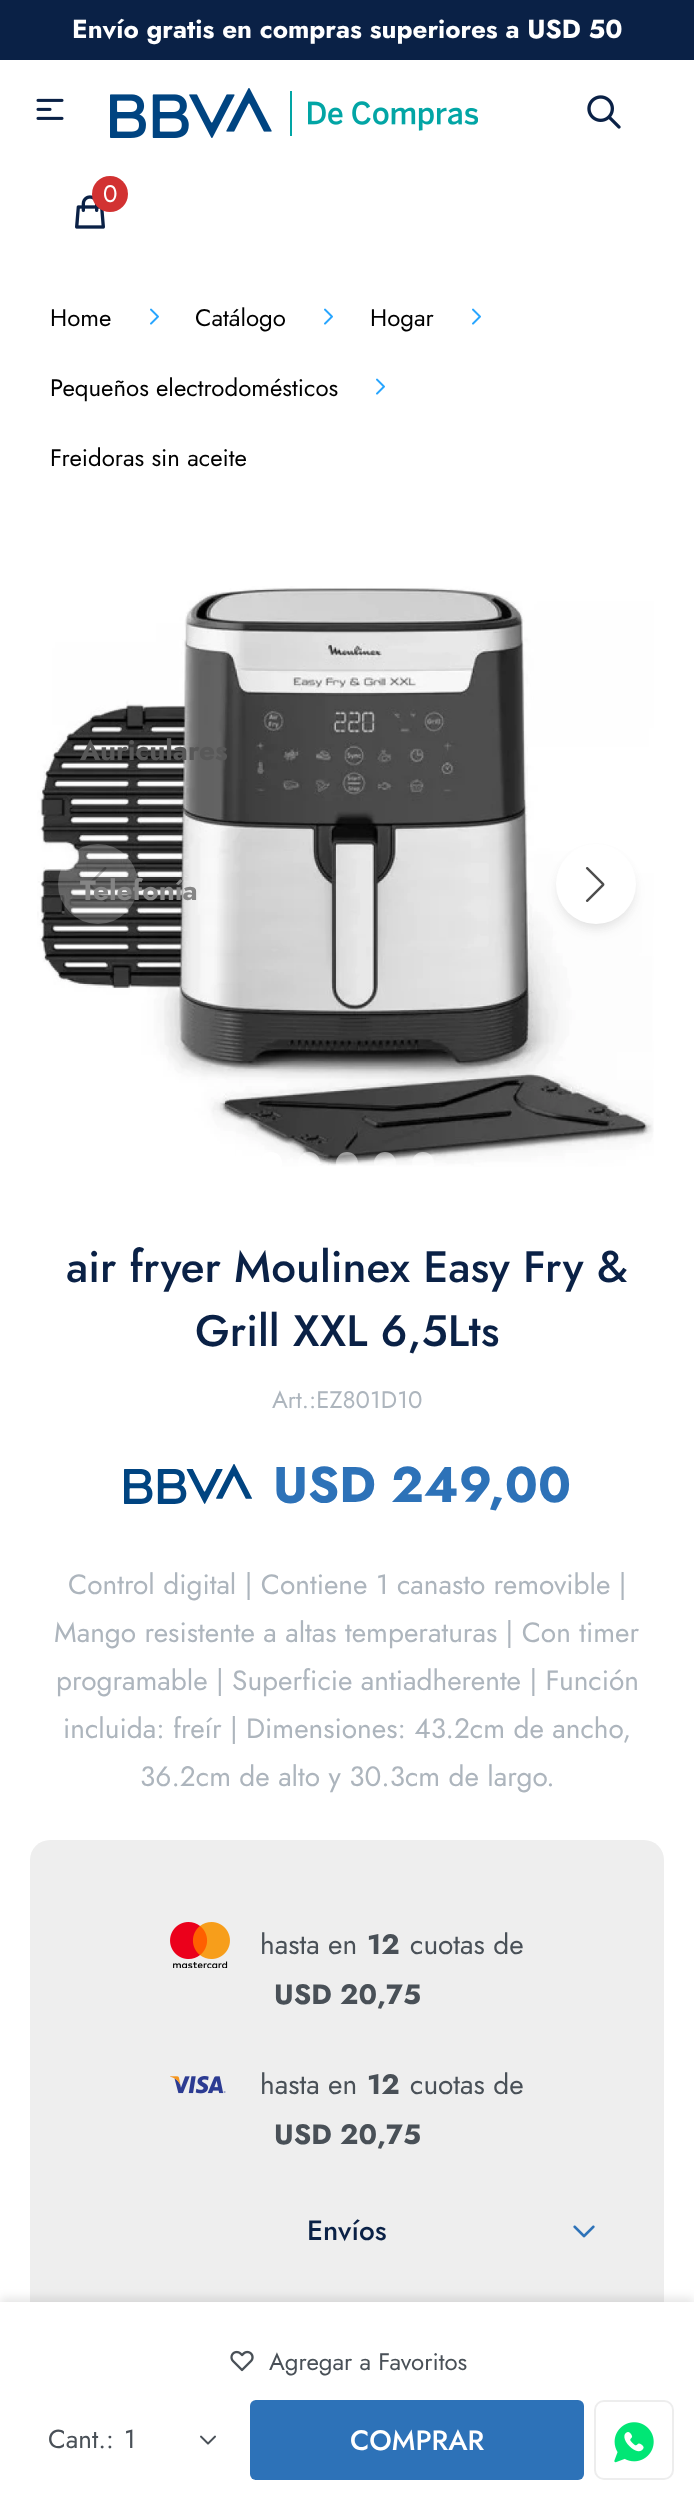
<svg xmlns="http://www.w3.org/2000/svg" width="694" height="2499">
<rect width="100%" height="100%" fill="#fff"/>
<rect width="694" height="60" fill="#0a2146"/>
<text x="72" y="38" style="font-family:Jost;font-size:26px;font-weight:bold;fill:#fff">Envío gratis en compras superiores a USD 50</text>
<image x="36" y="98" width="28" height="22" href="media/1.png"/>
<image x="110" y="88" width="368" height="50" href="media/2.png"/>
<image x="587" y="95" width="34" height="34" href="media/3.png"/>
<image x="75" y="195" width="30" height="34" href="media/4.png"/>
<circle cx="110" cy="194" r="18" fill="#d23232"/>
<text x="103" y="202" style="font-family:Jost;font-size:24px;fill:#fff">0</text>
<text x="50" y="326" style="font-family:Jost;font-size:24px;fill:#000">Home</text>
<image x="150" y="308" width="9" height="17" href="media/5.png"/>
<text x="195" y="326" style="font-family:Jost;font-size:24px;fill:#000">Catálogo</text>
<image x="324" y="308" width="9" height="17" href="media/5.png"/>
<text x="370" y="326" style="font-family:Jost;font-size:24px;fill:#000">Hogar</text>
<image x="472" y="308" width="9" height="17" href="media/5.png"/>
<text x="50" y="396" style="font-family:Jost;font-size:24px;fill:#000">Pequeños electrodomésticos</text>
<image x="376" y="378" width="9" height="17" href="media/5.png"/>
<text x="50" y="466" style="font-family:Jost;font-size:24px;fill:#000">Freidoras sin aceite</text>
<image x="37" y="586" width="617" height="581" href="media/6.png"/>
<circle cx="98" cy="884" r="40" fill="#ffffff3d"/>
<image x="88" y="867" width="19" height="35" href="media/7.png"/>
<rect x="558" y="850" width="76" height="76" rx="38" fill="#4c4c4c0f" filter="blur(4px)"/>
<rect x="558" y="854" width="76" height="76" rx="38" fill="#4c4c4c1a" filter="blur(6px)"/>
<circle cx="596" cy="884" r="40" fill="#fff"/>
<image x="585" y="867" width="20" height="35" href="media/8.png"/>
<circle cx="271" cy="1163" r="11" fill="#fff"/>
<circle cx="309" cy="1163" r="11" fill="#ffffff80"/>
<circle cx="347" cy="1163" r="11" fill="#ffffff80"/>
<circle cx="385" cy="1163" r="11" fill="#ffffff80"/>
<circle cx="423" cy="1163" r="11" fill="#ffffff80"/>
<text x="66" y="1282" style="font-family:Jost;font-size:44px;font-weight:500;fill:#0a2146">air fryer Moulinex Easy Fry &amp;</text>
<text x="195" y="1346" style="font-family:Jost;font-size:44px;font-weight:500;fill:#0a2146">Grill XXL 6,5Lts</text>
<text x="272" y="1408" style="font-family:Jost;font-size:24px;fill:#adb5bd">Art.:EZ801D10</text>
<image x="124" y="1464" width="128" height="40" href="media/9.png"/>
<text x="273" y="1502" style="font-family:Jost;font-size:50px;font-weight:bold;fill:#2d72b8">USD 249,00</text>
<text x="68" y="1594" style="font-family:Jost;font-size:28px;fill:#adb5bd">Control digital | Contiene 1 canasto removible |</text>
<text x="54" y="1642" style="font-family:Jost;font-size:28px;fill:#adb5bd">Mango resistente a altas temperaturas | Con timer</text>
<text x="56" y="1690" style="font-family:Jost;font-size:28px;fill:#adb5bd">programable | Superficie antiadherente | Función</text>
<text x="63" y="1738" style="font-family:Jost;font-size:28px;fill:#adb5bd">incluida: freír | Dimensiones: 43.2cm de ancho,</text>
<text x="140" y="1786" style="font-family:Jost;font-size:28px;fill:#adb5bd">36.2cm de alto y 30.3cm de largo.</text>
<rect x="30" y="1840" width="634" height="570" rx="20" fill="#eee"/>
<rect y="2298" width="694" height="198" fill="#0000001a" filter="blur(5px)"/>
<rect y="2302" width="694" height="197" fill="#fff"/>
<image x="230" y="2350" width="24" height="22" href="media/10.png"/>
<text x="269" y="2370" style="font-family:Jost;font-size:24px;fill:#495057">Agregar a Favoritos</text>
<text x="48" y="2448" style="font-family:Jost;font-size:26px;fill:#495057">Cant.:</text>
<text x="124" y="2448" style="font-family:Jost;font-size:26px;fill:#495057">1</text>
<image x="200" y="2435" width="16" height="10" href="media/11.png"/>
<rect x="250" y="2400" width="334" height="80" rx="6" fill="#2d72b8"/>
<text x="350" y="2450" style="font-family:Jost;font-size:28px;font-weight:500;fill:#fff">COMPRAR</text>
<rect x="595" y="2401" width="78" height="78" rx="9" fill="none" stroke="#ededed" stroke-width="2"/>
<image x="614" y="2422" width="40" height="41" href="media/12.png"/>
<image x="170" y="1922" width="60" height="46" href="media/13.png"/>
<text x="260" y="1954" style="font-family:Jost;font-size:28px;fill:#495057">hasta en</text>
<text x="367" y="1954" style="font-family:Jost;font-size:28px;font-weight:bold;fill:#495057">12</text>
<text x="410" y="1954" style="font-family:Jost;font-size:28px;fill:#495057">cuotas de</text>
<text x="274" y="2004" style="font-family:Jost;font-size:28px;font-weight:bold;fill:#495057">USD 20,75</text>
<image x="170" y="2076" width="56" height="18" href="media/14.png"/>
<text x="260" y="2094" style="font-family:Jost;font-size:28px;fill:#495057">hasta en</text>
<text x="367" y="2094" style="font-family:Jost;font-size:28px;font-weight:bold;fill:#495057">12</text>
<text x="410" y="2094" style="font-family:Jost;font-size:28px;fill:#495057">cuotas de</text>
<text x="274" y="2144" style="font-family:Jost;font-size:28px;font-weight:bold;fill:#495057">USD 20,75</text>
<text x="307" y="2240" style="font-family:Jost;font-size:28px;font-weight:500;fill:#0a2146">Envíos</text>
<image x="573" y="2225" width="22" height="13" href="media/15.png"/>
<text x="80" y="760" style="font-family:Jost;font-size:28px;font-weight:bold;fill:#585858">Auriculares</text>
<text x="80" y="900" style="font-family:Jost;font-size:28px;font-weight:bold;fill:#858585">Telefonía</text>
</svg>
